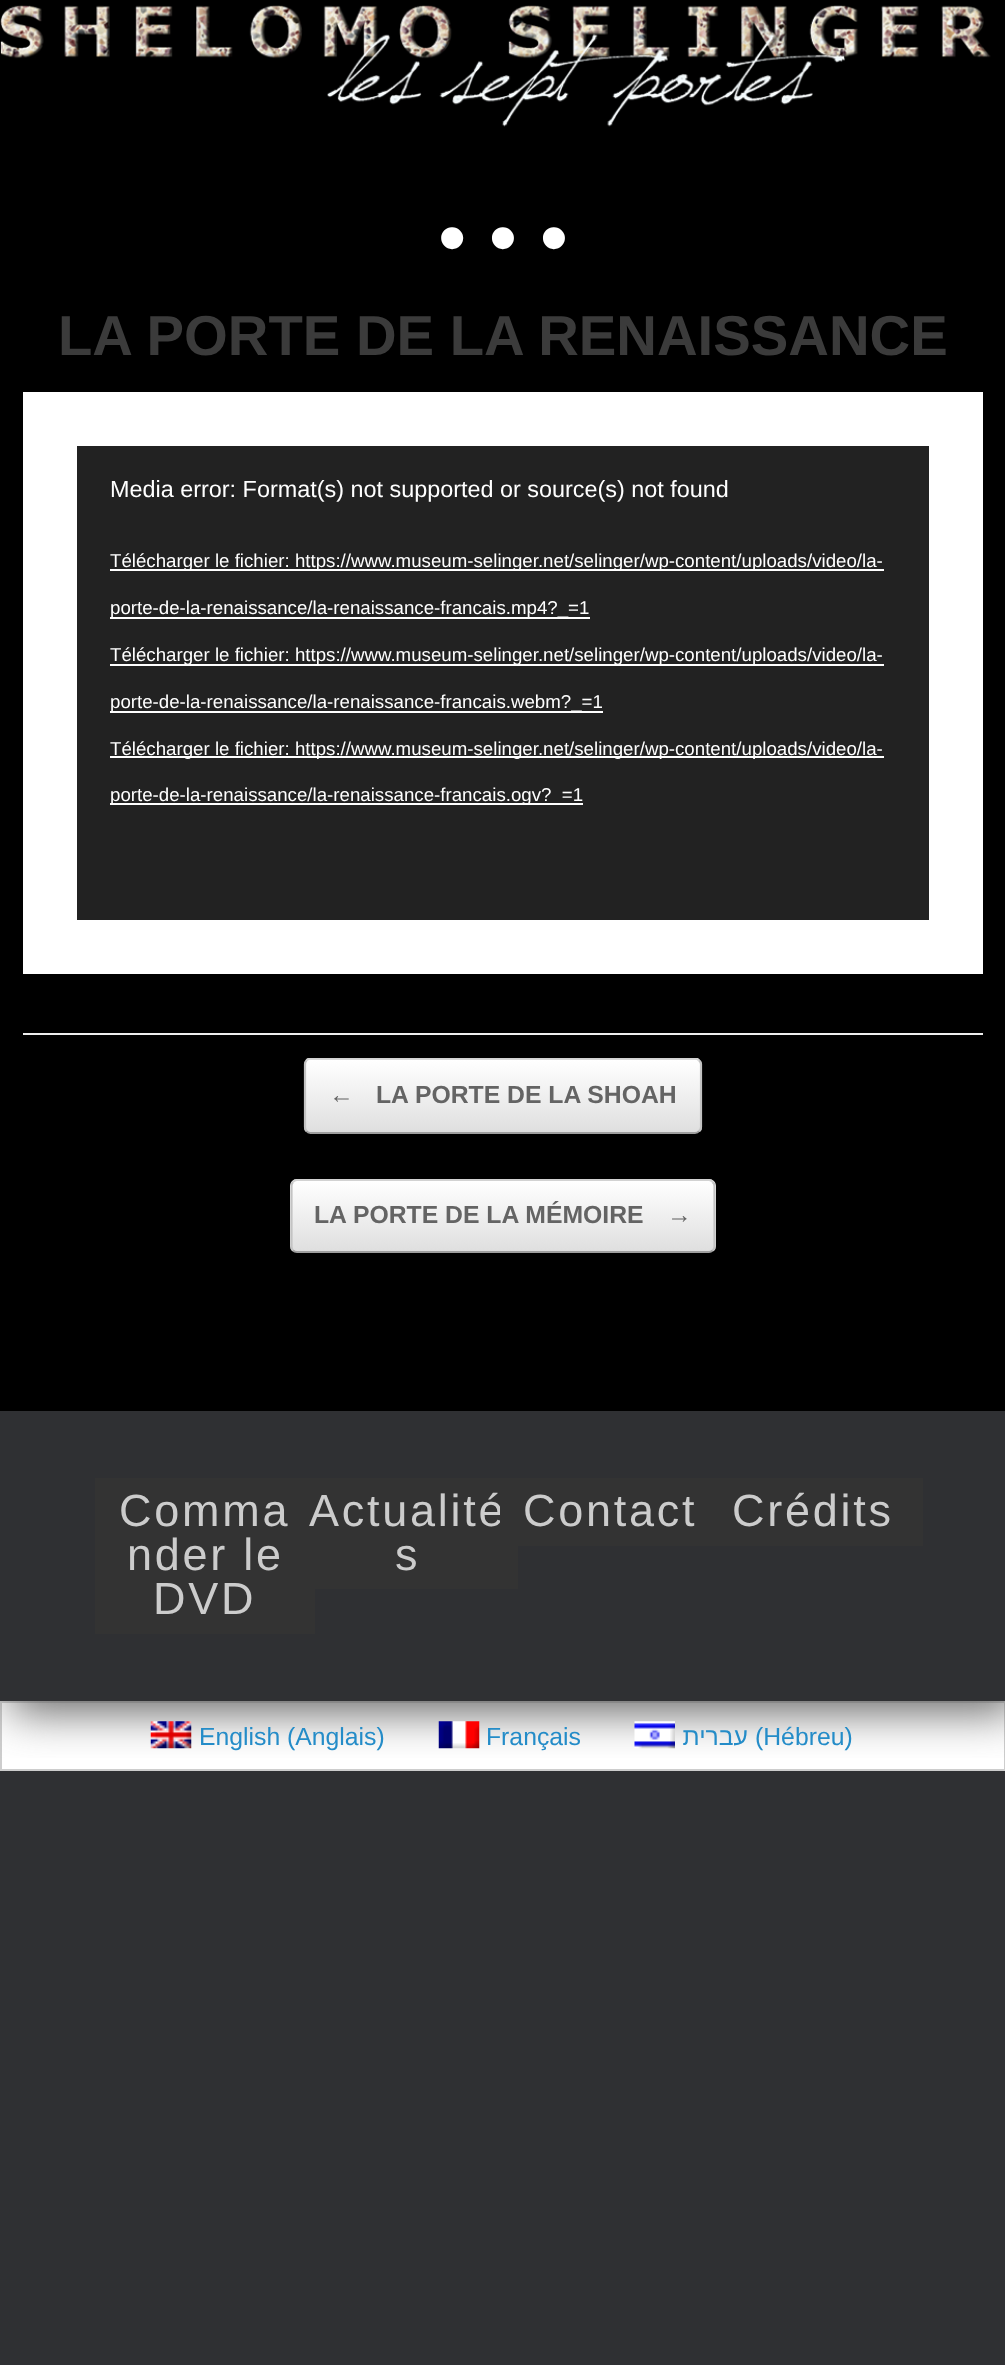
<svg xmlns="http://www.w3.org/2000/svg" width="1005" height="2365">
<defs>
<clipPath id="clip1"><rect x="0" y="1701" width="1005" height="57"/></clipPath>
<clipPath id="clip2"><rect x="304" y="1058" width="398" height="76" rx="7"/></clipPath>
<linearGradient id="g1" gradientUnits="userSpaceOnUse" x1="306" y1="1060" x2="306" y2="988"><stop offset="0" stop-color="#dfdfdf"/><stop offset="1" stop-color="#fff"/></linearGradient>
<linearGradient id="g2" gradientUnits="userSpaceOnUse" x1="306" y1="1132" x2="306" y2="1060"><stop offset="0" stop-color="#dfdfdf"/><stop offset="1" stop-color="#fff"/></linearGradient>
<clipPath id="clip3"><rect x="23" y="1058" width="960" height="240"/></clipPath>
<clipPath id="clip4"><rect x="290" y="1179" width="426" height="74" rx="7"/></clipPath>
<linearGradient id="g3" gradientUnits="userSpaceOnUse" x1="293" y1="1181" x2="293" y2="1112"><stop offset="0" stop-color="#dfdfdf"/><stop offset="1" stop-color="#fff"/></linearGradient>
<linearGradient id="g4" gradientUnits="userSpaceOnUse" x1="293" y1="1251" x2="293" y2="1181"><stop offset="0" stop-color="#dfdfdf"/><stop offset="1" stop-color="#fff"/></linearGradient>
</defs>
<rect width="100%" height="100%" fill="#2f3033"/>
<rect x="1" y="1702" width="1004" height="68" fill="#fff" stroke="#cdcdcd" stroke-width="2"/>
<g clip-path="url(#clip1)">
<rect x="11" y="11" width="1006" height="1701" fill="#656565" filter="blur(22.5px)"/>
</g>
<rect width="1005" height="1411" fill="#000"/>
<image x="0" y="5" width="991" height="122" href="media/1.png"/>
<text x="438" y="265" style="font-family:Liberation Sans;font-size:81px;fill:#fff">• • •</text>
<rect x="23" y="1033" width="960" height="2" fill="#eee"/>
<text x="58" y="355" style="font-family:Liberation Sans;font-size:56.25px;font-weight:bold;fill:#3b3b3b">LA PORTE DE LA RENAISSANCE</text>
<rect x="23" y="392" width="960" height="582" fill="#fff"/>
<rect x="77" y="446" width="852" height="474" fill="#222"/>
<text x="110" y="497" style="font-family:Liberation Sans;font-size:23.4px;fill:#fff">Media error: Format(s) not supported or source(s) not found</text>
<rect x="110" y="569" width="774" height="2" fill="#fff"/>
<text x="110" y="567" style="font-family:Liberation Sans;font-size:18.7px;fill:#fff">Télécharger le fichier: https://www.museum-selinger.net/selinger/wp-content/uploads/video/la-</text>
<rect x="110" y="617" width="480" height="2" fill="#fff"/>
<text x="110" y="614" style="font-family:Liberation Sans;font-size:18.7px;fill:#fff">porte-de-la-renaissance/la-renaissance-francais.mp4?_=1</text>
<rect x="110" y="664" width="774" height="2" fill="#fff"/>
<text x="110" y="661" style="font-family:Liberation Sans;font-size:18.7px;fill:#fff">Télécharger le fichier: https://www.museum-selinger.net/selinger/wp-content/uploads/video/la-</text>
<rect x="110" y="711" width="493" height="2" fill="#fff"/>
<text x="110" y="708" style="font-family:Liberation Sans;font-size:18.7px;fill:#fff">porte-de-la-renaissance/la-renaissance-francais.webm?_=1</text>
<rect x="110" y="756" width="774" height="2" fill="#fff"/>
<text x="110" y="755" style="font-family:Liberation Sans;font-size:18.7px;fill:#fff">Télécharger le fichier: https://www.museum-selinger.net/selinger/wp-content/uploads/video/la-</text>
<rect x="110" y="803" width="473" height="2" fill="#fff"/>
<text x="110" y="801" style="font-family:Liberation Sans;font-size:18.7px;fill:#fff">porte-de-la-renaissance/la-renaissance-francais.ogv?_=1</text>
<g clip-path="url(#clip2)">
<rect x="304" y="1058" width="398" height="2" fill="url(#g1)"/>
<rect x="304" y="1060" width="398" height="72" fill="url(#g2)"/>
</g>
<g clip-path="url(#clip3)">
<path d="M306.5 1060.5c1-1.5 2.5-2 4-2h384.5c1.5 0 3 .5 4 2" fill="none" stroke="#d2d2d2" stroke-width="2.2"/>
</g>
<path d="M699 1060.5c1.5 1 2 2.5 2 3.5v63c0 1.5-.5 3-2 4" fill="none" stroke="#c3c3c3" stroke-width="2.2"/>
<path d="M699 1131c-1 1.5-2.5 2-4 2h-384.5c-1.5 0-3-.5-4-2" fill="none" stroke="#9f9f9f" stroke-width="2.2"/>
<path d="M306.5 1131c-1-1-1.5-2.5-1.5-4v-63c0-1 .5-2.5 1.5-3.5" fill="none" stroke="#c3c3c3" stroke-width="2.2"/>
<text x="329" y="1103" style="font-family:Liberation Sans;font-size:24.75px;font-weight:bold;fill:#646464">←</text>
<text x="376" y="1103" style="font-family:Liberation Sans;font-size:24.75px;font-weight:bold;fill:#646464">LA PORTE DE LA SHOAH</text>
<g clip-path="url(#clip4)">
<rect x="290" y="1179" width="426" height="2" fill="url(#g3)"/>
<rect x="290" y="1181" width="426" height="70" fill="url(#g4)"/>
</g>
<path d="M293 1182c1-1.5 2.5-2 4-2h412c1 0 2.5 .5 3.5 2" fill="none" stroke="#d2d2d2" stroke-width="2.2"/>
<path d="M712.5 1182c1.5 1 2 2.5 2 4v60.5c0 1.5-.5 3-2 4" fill="none" stroke="#c3c3c3" stroke-width="2.2"/>
<path d="M712.5 1250.5c-1 1-2.5 1.5-3.5 1.5h-412c-1.5 0-3-.5-4-1.5" fill="none" stroke="#9f9f9f" stroke-width="2.2"/>
<path d="M293 1250.5c-1-1-1.5-2.5-1.5-4v-60.5c0-1.5 .5-3 1.5-4" fill="none" stroke="#c3c3c3" stroke-width="2.2"/>
<text x="314" y="1223" style="font-family:Liberation Sans;font-size:24.75px;font-weight:bold;fill:#646464">LA PORTE DE LA MÉMOIRE</text>
<text x="667" y="1223" style="font-family:Liberation Sans;font-size:24.75px;font-weight:bold;fill:#646464">→</text>
<rect x="95" y="1478" width="220" height="156" fill="#333"/>
<text x="119" y="1526" style="font-family:Liberation Sans;font-size:45px;letter-spacing:2.75px;fill:#ccc">Comma</text>
<text x="127" y="1570" style="font-family:Liberation Sans;font-size:45px;letter-spacing:2.75px;fill:#ccc">nder le</text>
<text x="153" y="1614" style="font-family:Liberation Sans;font-size:45px;letter-spacing:2.75px;fill:#ccc">DVD</text>
<rect x="315" y="1478" width="203" height="111" fill="#333"/>
<text x="309" y="1526" style="font-family:Liberation Sans;font-size:45px;letter-spacing:2.75px;fill:#ccc">Actualité</text>
<text x="395" y="1570" style="font-family:Liberation Sans;font-size:45px;letter-spacing:2.75px;fill:#ccc">s</text>
<rect x="500" y="1478" width="423" height="68" fill="#333"/>
<text x="523" y="1526" style="font-family:Liberation Sans;font-size:45px;letter-spacing:2.75px;fill:#ccc">Contact</text>
<text x="732" y="1526" style="font-family:Liberation Sans;font-size:45px;letter-spacing:2.75px;fill:#ccc">Crédits</text>
<image x="150" y="1721" width="42" height="28" href="media/2.png"/>
<text x="199" y="1745" style="font-family:Liberation Sans;font-size:24.75px;fill:#248cc8">English (Anglais)</text>
<image x="438" y="1721" width="42" height="28" href="media/3.png"/>
<text x="486" y="1745" style="font-family:Liberation Sans;font-size:24.75px;fill:#248cc8">Français</text>
<image x="634" y="1721" width="41" height="28" href="media/4.png"/>
<text x="748" y="1745" style="font-family:Liberation Sans;font-size:24.75px;direction:rtl;fill:#248cc8">עברית</text>
<text x="755" y="1745" style="font-family:Liberation Sans;font-size:24.75px;fill:#248cc8">(Hébreu)</text>
</svg>
